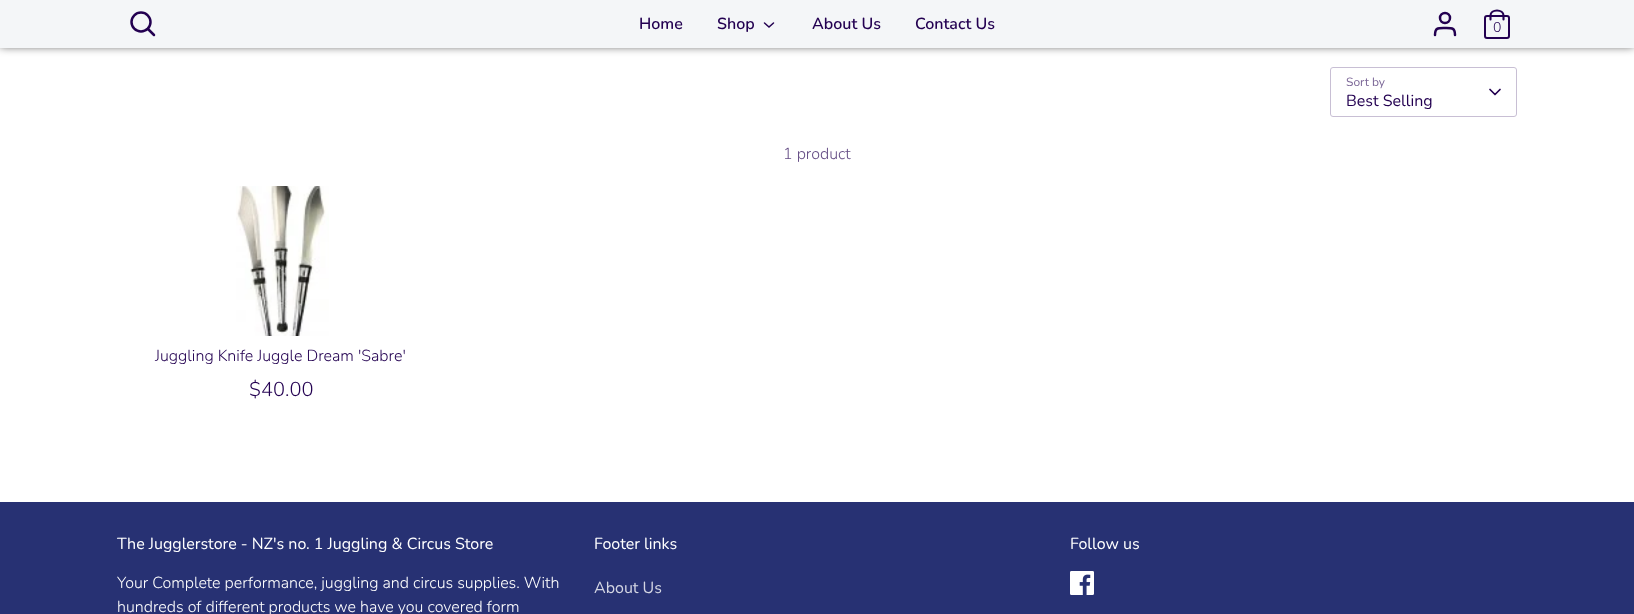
<svg xmlns="http://www.w3.org/2000/svg" width="1634" height="614">
<rect width="100%" height="100%" fill="#fff"/>
<rect y="-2" width="1634" height="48" fill="#000000bf" filter="blur(5px)"/>
<rect width="1634" height="48" fill="#f4f6f8"/>
<circle cx="141" cy="22" r="9.5" fill="none" stroke="#230051" stroke-width="2.5"/>
<path d="M154 35l-6-6" fill="none" stroke="#230051" stroke-width="2.5" stroke-linecap="round"/>
<text x="639" y="29" style="font-family:Nunito;font-size:16px;font-weight:600;fill:#230051">Home</text>
<text x="717" y="29" style="font-family:Nunito;font-size:16px;font-weight:600;fill:#230051">Shop</text>
<path d="M764.5 23l4.5 4l4.5-4" fill="none" stroke="#230051" stroke-width="1.5" stroke-linecap="round"/>
<text x="812" y="29" style="font-family:Nunito;font-size:16px;font-weight:600;fill:#230051">About Us</text>
<text x="915" y="29" style="font-family:Nunito;font-size:16px;font-weight:600;fill:#230051">Contact Us</text>
<path d="M1455 35c0-7.5-3-7-10-7c-7 0-10-.5-10 7" fill="none" stroke="#230051" stroke-width="2.5" stroke-linecap="round"/>
<circle cx="1445" cy="18" r="5" fill="none" stroke="#230051" stroke-width="2.5"/>
<rect x="1485" y="16" width="24" height="22" rx="2" fill="none" stroke="#230051" stroke-width="2"/>
<path d="M1490.5 19.5v-4c0-3 3-5 6.5-5c3.5 0 6.5 2 6.5 5v4" fill="none" stroke="#230051" stroke-width="2.1" stroke-linecap="round"/>
<text x="1493" y="32" style="font-family:Nunito;font-size:14px;font-weight:300;fill:#230051">0</text>
<rect x="1330.5" y="67.5" width="186" height="49" rx="2.5" fill="none" stroke="#c8bfd4"/>
<text x="1346" y="86" style="font-family:Nunito;font-size:12px;fill:#7b6697">Sort by</text>
<path d="M1490 89.5l5 5l5-5" fill="none" stroke="#230051" stroke-width="1.7" stroke-linecap="round" stroke-linejoin="round"/>
<text x="1346" y="106" style="font-family:Nunito;font-size:16px;fill:#230051">Best Selling</text>
<text x="783" y="159" style="font-family:Nunito;font-size:16px;font-weight:300;fill:#654d85">1 product</text>
<image x="236" y="186" width="93" height="150" href="media/1.png"/>
<text x="155" y="361" style="font-family:Nunito;font-size:16px;font-weight:300;fill:#230051">Juggling Knife Juggle Dream 'Sabre'</text>
<text x="249" y="396" style="font-family:Nunito;font-size:20px;font-weight:300;fill:#230051">$40.00</text>
<rect y="502" width="1634" height="112" fill="#273173"/>
<text x="117" y="549" style="font-family:Nunito;font-size:16px;fill:#fff">The Jugglerstore - NZ's no. 1 Juggling &amp; Circus Store</text>
<text x="117" y="588" style="font-family:Nunito;font-size:16px;font-weight:300;fill:#fff">Your Complete performance, juggling and circus supplies. With</text>
<text x="117" y="612" style="font-family:Nunito;font-size:16px;font-weight:300;fill:#fff">hundreds of different products we have you covered form</text>
<text x="594" y="549" style="font-family:Nunito;font-size:16px;fill:#fff">Footer links</text>
<text x="594" y="593" style="font-family:Nunito;font-size:16px;fill:#d4d6e3">About Us</text>
<text x="1070" y="549" style="font-family:Nunito;font-size:16px;fill:#fff">Follow us</text>
<image x="1070" y="571" width="24" height="24" href="media/2.png"/>
</svg>
